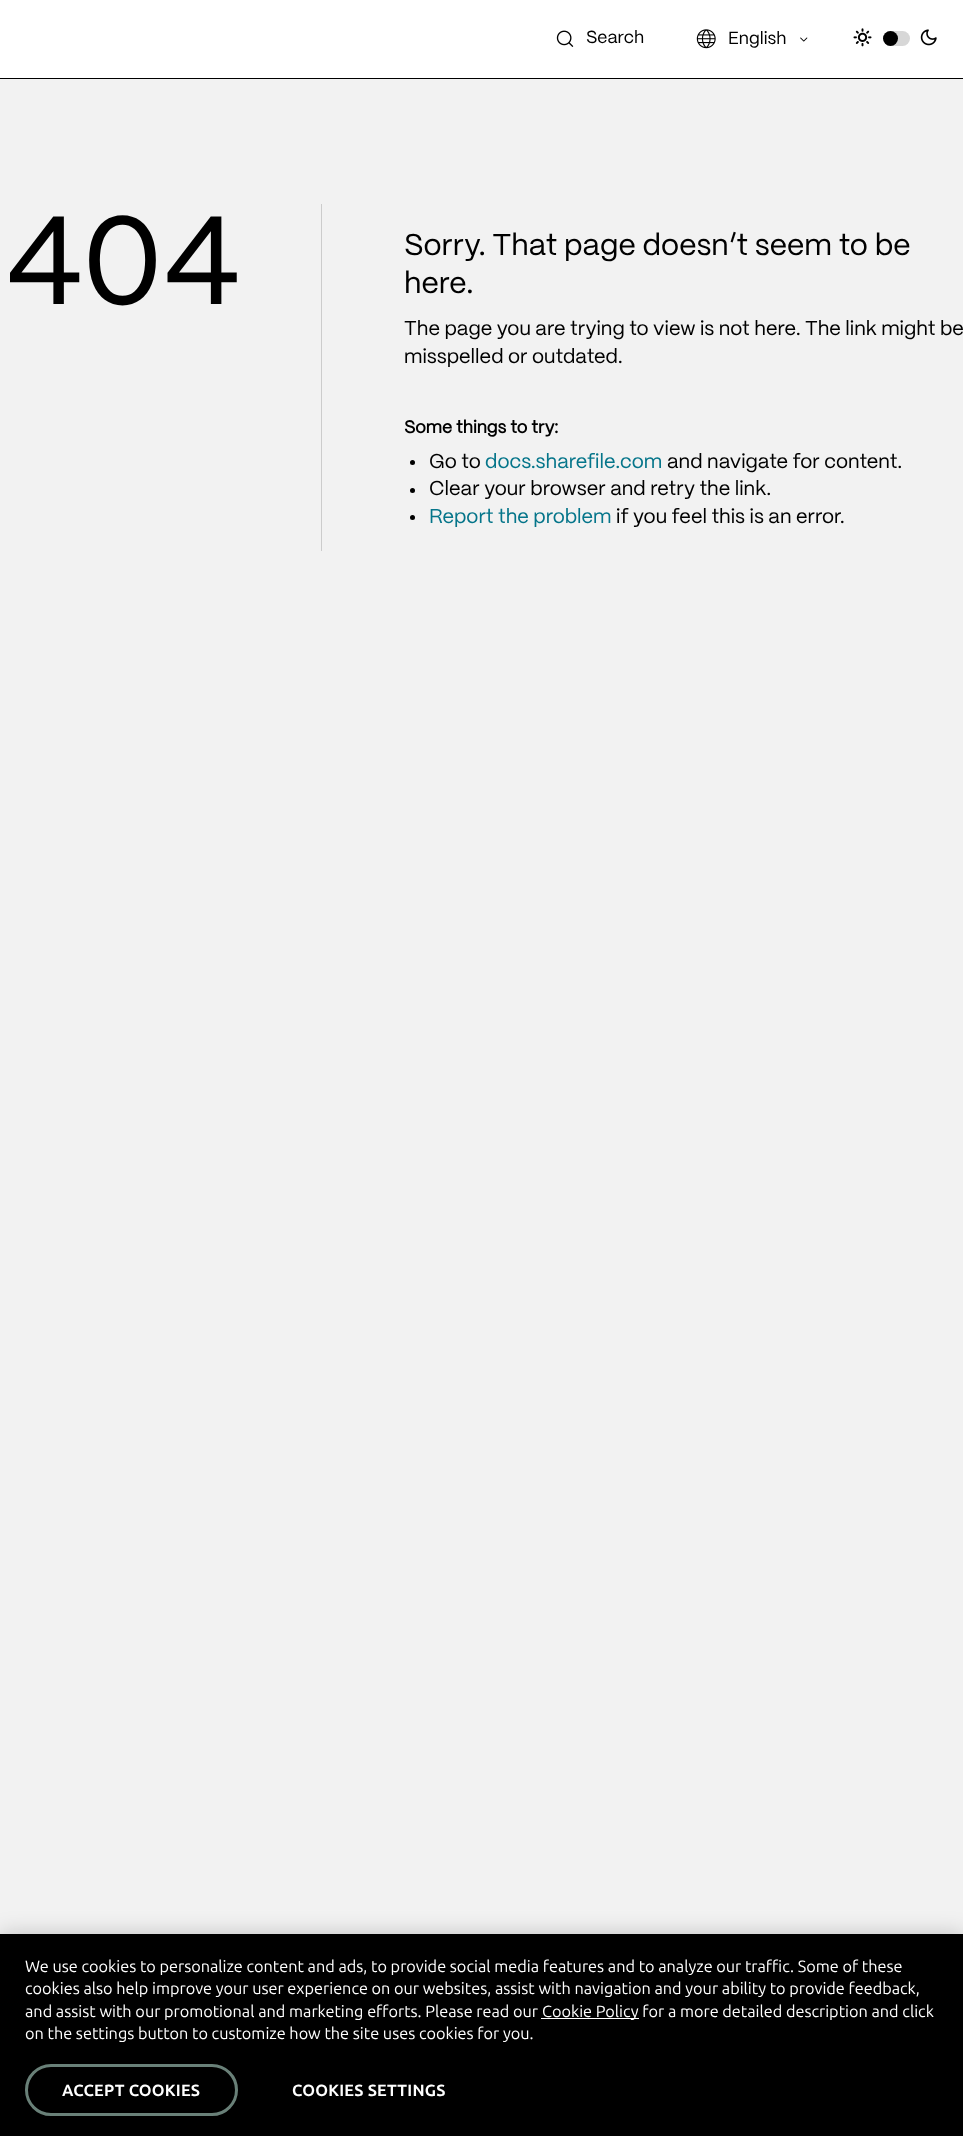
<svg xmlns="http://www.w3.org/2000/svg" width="963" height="2136">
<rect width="100%" height="100%" fill="#f2f2f2"/>
<rect y="78" width="963" height="1" fill="#000"/>
<rect width="963" height="78" fill="#fff"/>
<image x="556" y="30" width="18" height="17" href="media/1.png"/>
<text x="586" y="43" style="font-family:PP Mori;font-size:17.5px;fill:#000">Search</text>
<image x="696" y="29" width="20" height="20" href="media/2.png"/>
<text x="728" y="44" style="font-family:PP Mori;font-size:17.5px;fill:#000">English</text>
<image x="800" y="37" width="8" height="5" href="media/3.png"/>
<image x="853" y="28" width="19" height="19" href="media/4.png"/>
<rect x="883" y="31" width="27" height="15" rx="7.5" fill="#d7d7d7"/>
<circle cx="890.5" cy="38.5" r="7.5" fill="#000"/>
<image x="920" y="29" width="17" height="17" href="media/5.png"/>
<text x="5" y="304" style="font-family:PP Mori;font-size:125px;fill:#000">404</text>
<rect x="321" y="204" width="1" height="347" fill="#ccc"/>
<text x="404" y="255" style="font-family:PP Mori;font-size:30px;fill:#000">Sorry. That page doesn’t seem to be</text>
<text x="404" y="293" style="font-family:PP Mori;font-size:30px;fill:#000">here.</text>
<text x="404" y="335" style="font-family:PP Mori;font-size:20px;fill:#000">The page you are trying to view is not here. The link might be</text>
<text x="404" y="363" style="font-family:PP Mori;font-size:20px;fill:#000">misspelled or outdated.</text>
<text x="404" y="433" style="font-family:PP Mori;font-size:17.5px;font-weight:bold;fill:#000">Some things to try:</text>
<circle cx="412.5" cy="462.5" r="2.5" fill="#000"/>
<text x="429" y="468" style="font-family:PP Mori;font-size:20px;fill:#000">Go to</text>
<text x="485" y="468" style="font-family:PP Mori;font-size:20px;fill:#05758a">docs.sharefile.com</text>
<text x="667" y="468" style="font-family:PP Mori;font-size:20px;fill:#000">and navigate for content.</text>
<circle cx="412.5" cy="490.5" r="2.5" fill="#000"/>
<text x="429" y="495" style="font-family:PP Mori;font-size:20px;fill:#000">Clear your browser and retry the link.</text>
<circle cx="412.5" cy="517.5" r="2.5" fill="#000"/>
<text x="429" y="523" style="font-family:PP Mori;font-size:20px;fill:#05758a">Report the problem</text>
<text x="616" y="523" style="font-family:PP Mori;font-size:20px;fill:#000">if you feel this is an error.</text>
<rect y="1934" width="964" height="202" fill="#00000033" filter="blur(11px)"/>
<rect y="1934" width="963" height="202" fill="#000"/>
<text x="25" y="1972" style="font-family:Ubuntu;font-size:16.25px;fill:#fff">We use cookies to personalize content and ads, to provide social media features and to analyze our traffic. Some of these</text>
<text x="25" y="1994" style="font-family:Ubuntu;font-size:16.25px;fill:#fff">cookies also help improve your user experience on our websites, assist with navigation and your ability to provide feedback,</text>
<text x="25" y="2017" style="font-family:Ubuntu;font-size:16.25px;fill:#fff">and assist with our promotional and marketing efforts. Please read our</text>
<rect x="541" y="2018" width="98" height="1" fill="#fff"/>
<text x="542" y="2017" style="font-family:Ubuntu;font-size:16.25px;fill:#fff">Cookie Policy for a more detailed description and click</text>
<text x="25" y="2039" style="font-family:Ubuntu;font-size:16.25px;fill:#fff">on the settings button to customize how the site uses cookies for you.</text>
<rect x="26.5" y="2065.5" width="210" height="49" rx="24.5" fill="none" stroke="#698078" stroke-width="3"/>
<text x="62" y="2096" style="font-family:Ubuntu;font-size:16.25px;font-weight:bold;letter-spacing:0.2px;fill:#fff">ACCEPT COOKIES</text>
<text x="292" y="2096" style="font-family:Ubuntu;font-size:16.25px;font-weight:bold;letter-spacing:0.2px;fill:#fff">COOKIES SETTINGS</text>
</svg>
